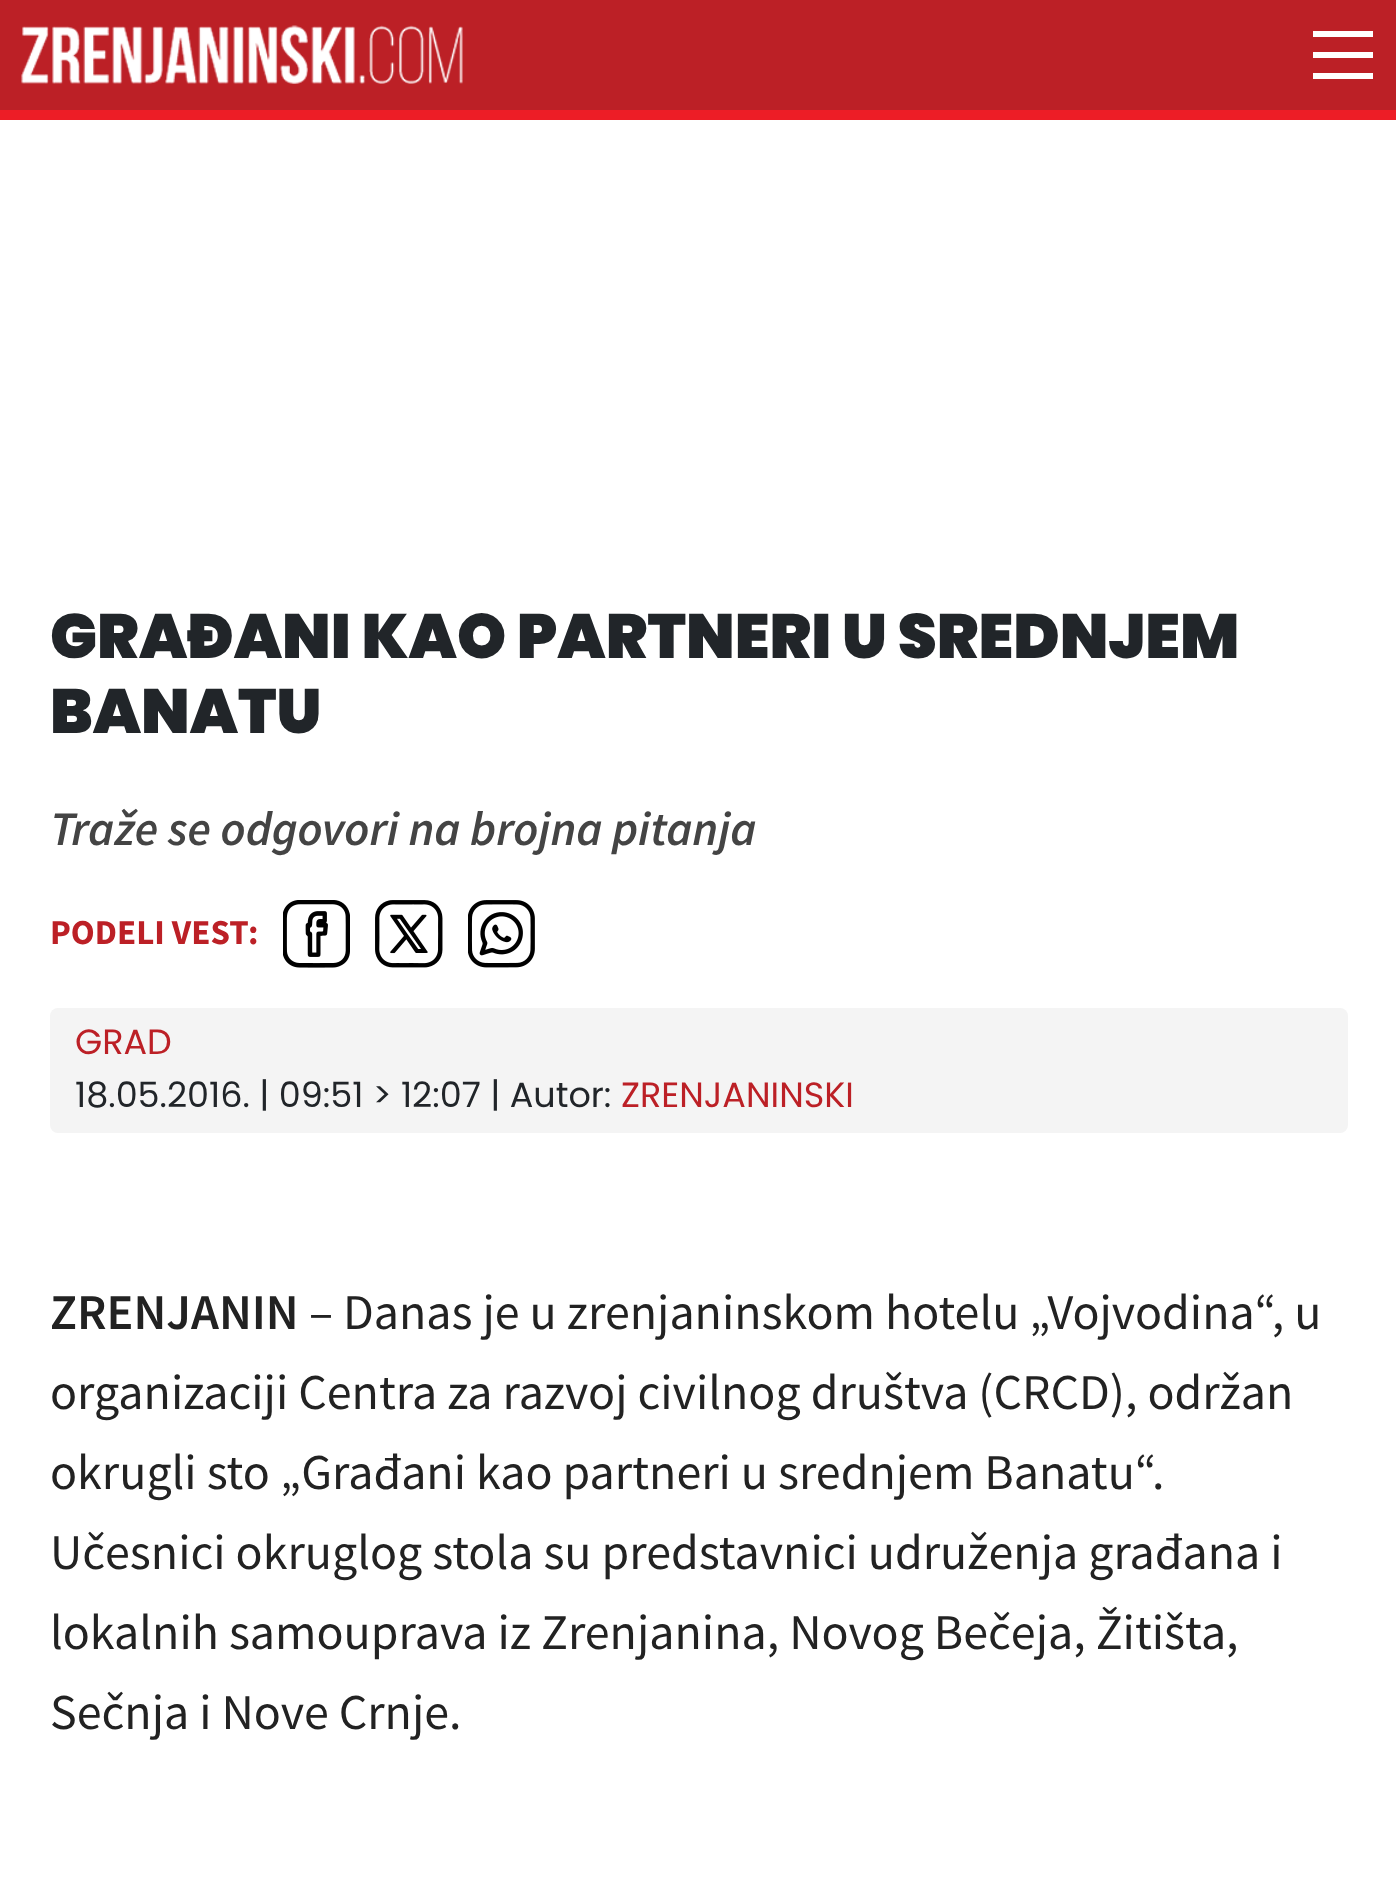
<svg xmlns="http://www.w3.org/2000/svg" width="1396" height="1885">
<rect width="100%" height="100%" fill="#fff"/>
<rect width="1396" height="110" fill="#bc2026"/>
<rect y="110" width="1396" height="10" fill="#ed1d26"/>
<image x="21" y="25" width="442" height="59" href="media/1.png"/>
<rect x="1313" y="73" width="60" height="6" fill="#fff"/>
<rect x="1313" y="52" width="60" height="6" fill="#fff"/>
<rect x="1313" y="31" width="60" height="6" fill="#fff"/>
<text x="50" y="658" style="font-family:Poppins;font-size:62.5px;font-weight:900;fill:#212529">GRAĐANI KAO PARTNERI U SREDNJEM</text>
<text x="50" y="733" style="font-family:Poppins;font-size:62.5px;font-weight:900;fill:#212529">BANATU</text>
<text x="50" y="845" style="font-family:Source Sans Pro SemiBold;font-size:48px;font-weight:600;font-style:italic;fill:#444">Traže se odgovori na brojna pitanja</text>
<text x="50" y="944" style="font-family:Source Sans Pro;font-size:35px;font-weight:bold;fill:#bc2026">PODELI VEST:</text>
<image x="283" y="900" width="67" height="68" href="media/2.png"/>
<image x="375" y="900" width="68" height="68" href="media/3.png"/>
<image x="468" y="900" width="67" height="68" href="media/4.png"/>
<rect x="50" y="1008" width="1298" height="125" rx="8" fill="#f4f4f4"/>
<text x="75" y="1054" style="font-family:Poppins;font-size:35px;fill:#bc2026">GRAD</text>
<text x="75" y="1107" style="font-family:Poppins;font-size:35px;fill:#212529">18.05.2016. | 09:51 &gt; 12:07 | Autor:</text>
<text x="621" y="1107" style="font-family:Poppins;font-size:35px;fill:#bc2026">ZRENJANINSKI</text>
<text x="50" y="1329" style="font-family:Source Sans Pro SemiBold;font-size:50px;font-weight:600;fill:#222">ZRENJANIN</text>
<text x="309" y="1329" style="font-family:Source Sans Pro;font-size:50px;fill:#222">– Danas je u zrenjaninskom hotelu „Vojvodina“, u</text>
<text x="50" y="1409" style="font-family:Source Sans Pro;font-size:50px;fill:#222">organizaciji Centra za razvoj civilnog društva (CRCD), održan</text>
<text x="50" y="1489" style="font-family:Source Sans Pro;font-size:50px;fill:#222">okrugli sto „Građani kao partneri u srednjem Banatu“.</text>
<text x="50" y="1569" style="font-family:Source Sans Pro;font-size:50px;fill:#222">Učesnici okruglog stola su predstavnici udruženja građana i</text>
<text x="50" y="1649" style="font-family:Source Sans Pro;font-size:50px;fill:#222">lokalnih samouprava iz Zrenjanina, Novog Bečeja, Žitišta,</text>
<text x="50" y="1729" style="font-family:Source Sans Pro;font-size:50px;fill:#222">Sečnja i Nove Crnje.</text>
</svg>
